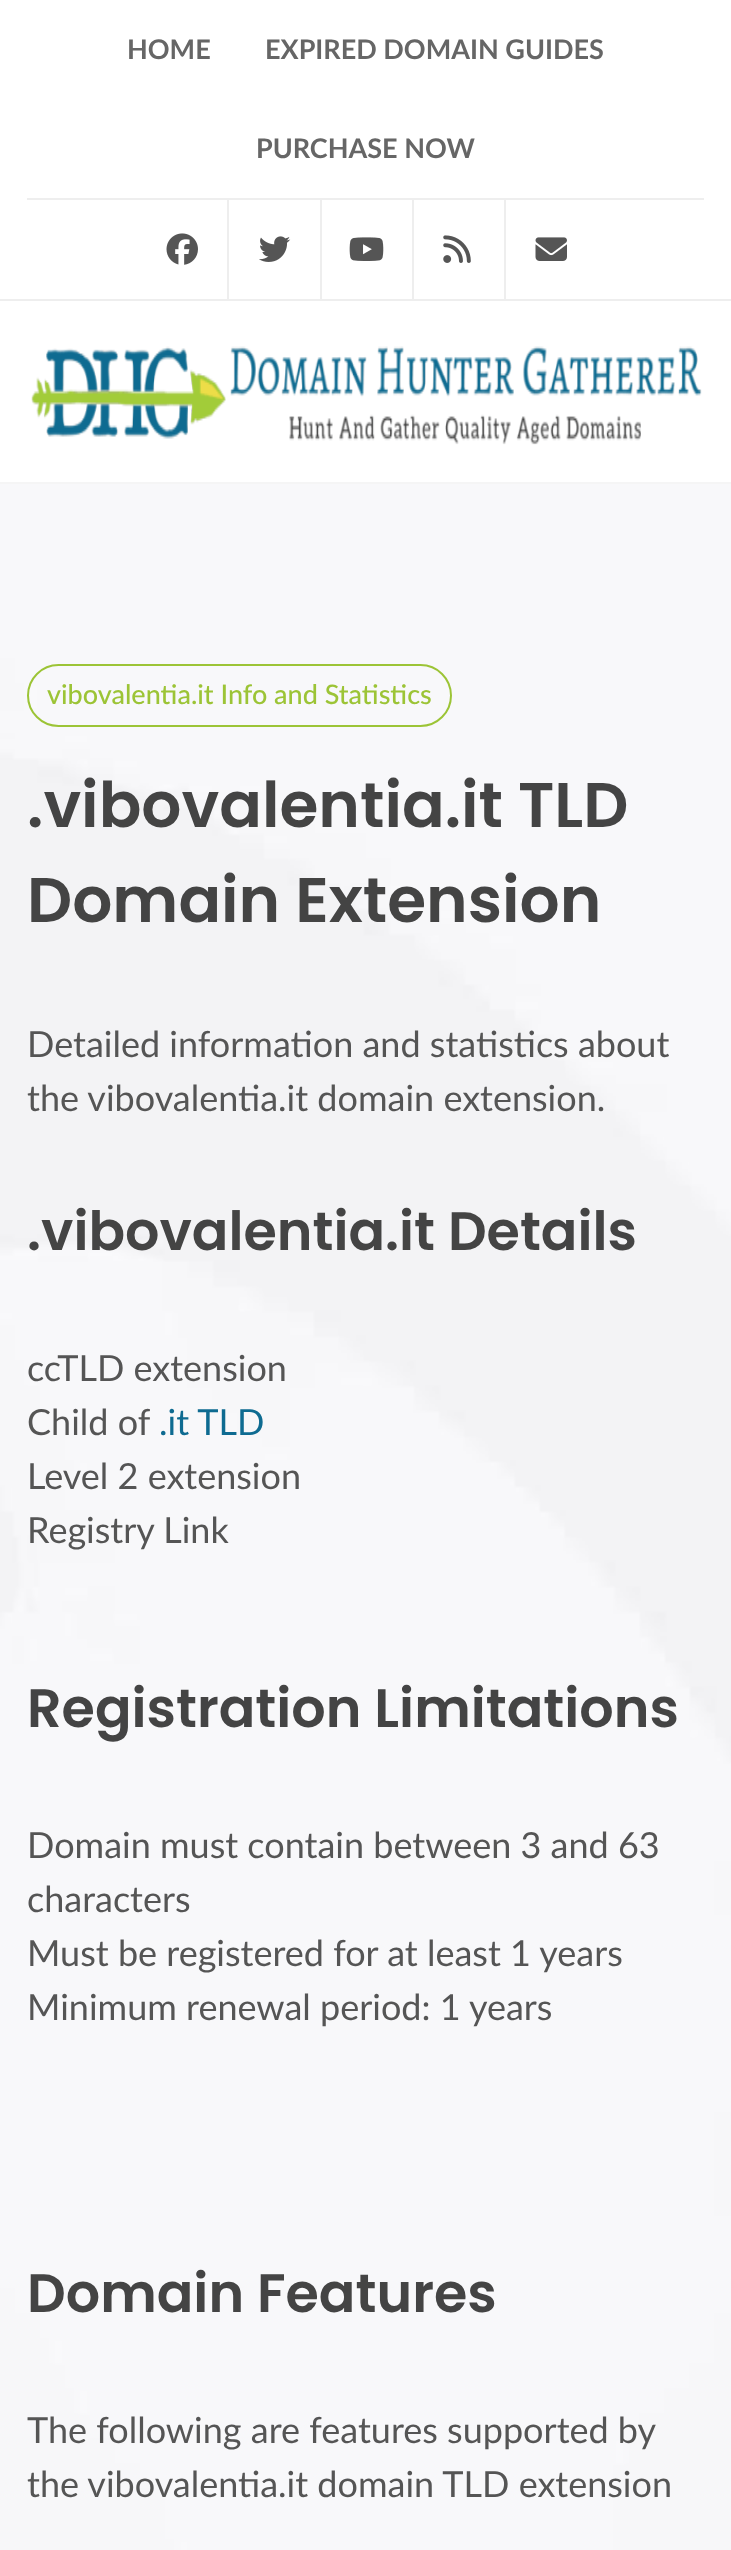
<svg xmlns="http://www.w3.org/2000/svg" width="731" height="2550">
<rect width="100%" height="100%" fill="#fff"/>
<rect y="299" width="731" height="2" fill="#eee"/>
<rect x="27" y="198" width="677" height="2" fill="#eee"/>
<text x="127" y="59" style="font-family:Lato;font-size:27px;font-weight:bold;fill:#666">HOME</text>
<text x="265" y="59" style="font-family:Lato;font-size:27px;font-weight:bold;fill:#666">EXPIRED DOMAIN GUIDES</text>
<text x="256" y="158" style="font-family:Lato;font-size:27px;font-weight:bold;fill:#666">PURCHASE NOW</text>
<image x="166" y="233" width="32" height="32" href="media/1.png"/>
<rect x="227" y="200" width="2" height="99" fill="#eee"/>
<image x="259" y="236" width="32" height="26" href="media/2.png"/>
<rect x="320" y="200" width="2" height="99" fill="#eee"/>
<image x="349" y="237" width="35" height="24" href="media/3.png"/>
<rect x="412" y="200" width="2" height="99" fill="#eee"/>
<image x="443" y="235" width="28" height="28" href="media/4.png"/>
<rect x="504" y="200" width="2" height="99" fill="#eee"/>
<image x="535" y="237" width="32" height="24" href="media/5.png"/>
<rect y="482" width="731" height="2" fill="#f5f5f5"/>
<image x="31" y="346" width="671" height="99" href="media/6.png"/>
<image x="0" y="484" width="731" height="2066" href="media/7.png"/>
<rect x="28" y="665" width="423" height="61" rx="30.5" fill="none" stroke="#9cc436" stroke-width="2"/>
<text x="47" y="704" style="font-family:Lato;font-size:27px;font-weight:500;fill:#9cc436">vibovalentia.it Info and Statistics</text>
<text x="27" y="827" style="font-family:Poppins;font-size:63px;font-weight:600;fill:#444">.vibovalentia.it TLD</text>
<text x="27" y="922" style="font-family:Poppins;font-size:63px;font-weight:600;fill:#444">Domain Extension</text>
<text x="27" y="1057" style="font-family:Lato;font-size:36px;fill:#555">Detailed information and statistics about</text>
<text x="27" y="1111" style="font-family:Lato;font-size:36px;fill:#555">the vibovalentia.it domain extension.</text>
<text x="27" y="1250" style="font-family:Poppins;font-size:54px;font-weight:600;fill:#444">.vibovalentia.it Details</text>
<text x="27" y="1381" style="font-family:Lato;font-size:36px;fill:#555">ccTLD extension</text>
<text x="27" y="1435" style="font-family:Lato;font-size:36px;fill:#555">Child of</text>
<text x="159" y="1435" style="font-family:Lato;font-size:36px;fill:#0e6b91">.it TLD</text>
<text x="27" y="1489" style="font-family:Lato;font-size:36px;fill:#555">Level 2 extension</text>
<text x="27" y="1543" style="font-family:Lato;font-size:36px;fill:#555">Registry Link</text>
<text x="27" y="1727" style="font-family:Poppins;font-size:54px;font-weight:600;fill:#444">Registration Limitations</text>
<text x="27" y="1858" style="font-family:Lato;font-size:36px;fill:#555">Domain must contain between 3 and 63</text>
<text x="27" y="1912" style="font-family:Lato;font-size:36px;fill:#555">characters</text>
<text x="27" y="1966" style="font-family:Lato;font-size:36px;fill:#555">Must be registered for at least 1 years</text>
<text x="27" y="2020" style="font-family:Lato;font-size:36px;fill:#555">Minimum renewal period: 1 years</text>
<text x="27" y="2312" style="font-family:Poppins;font-size:54px;font-weight:600;fill:#444">Domain Features</text>
<text x="27" y="2443" style="font-family:Lato;font-size:36px;fill:#555">The following are features supported by</text>
<text x="27" y="2497" style="font-family:Lato;font-size:36px;fill:#555">the vibovalentia.it domain TLD extension</text>
</svg>
